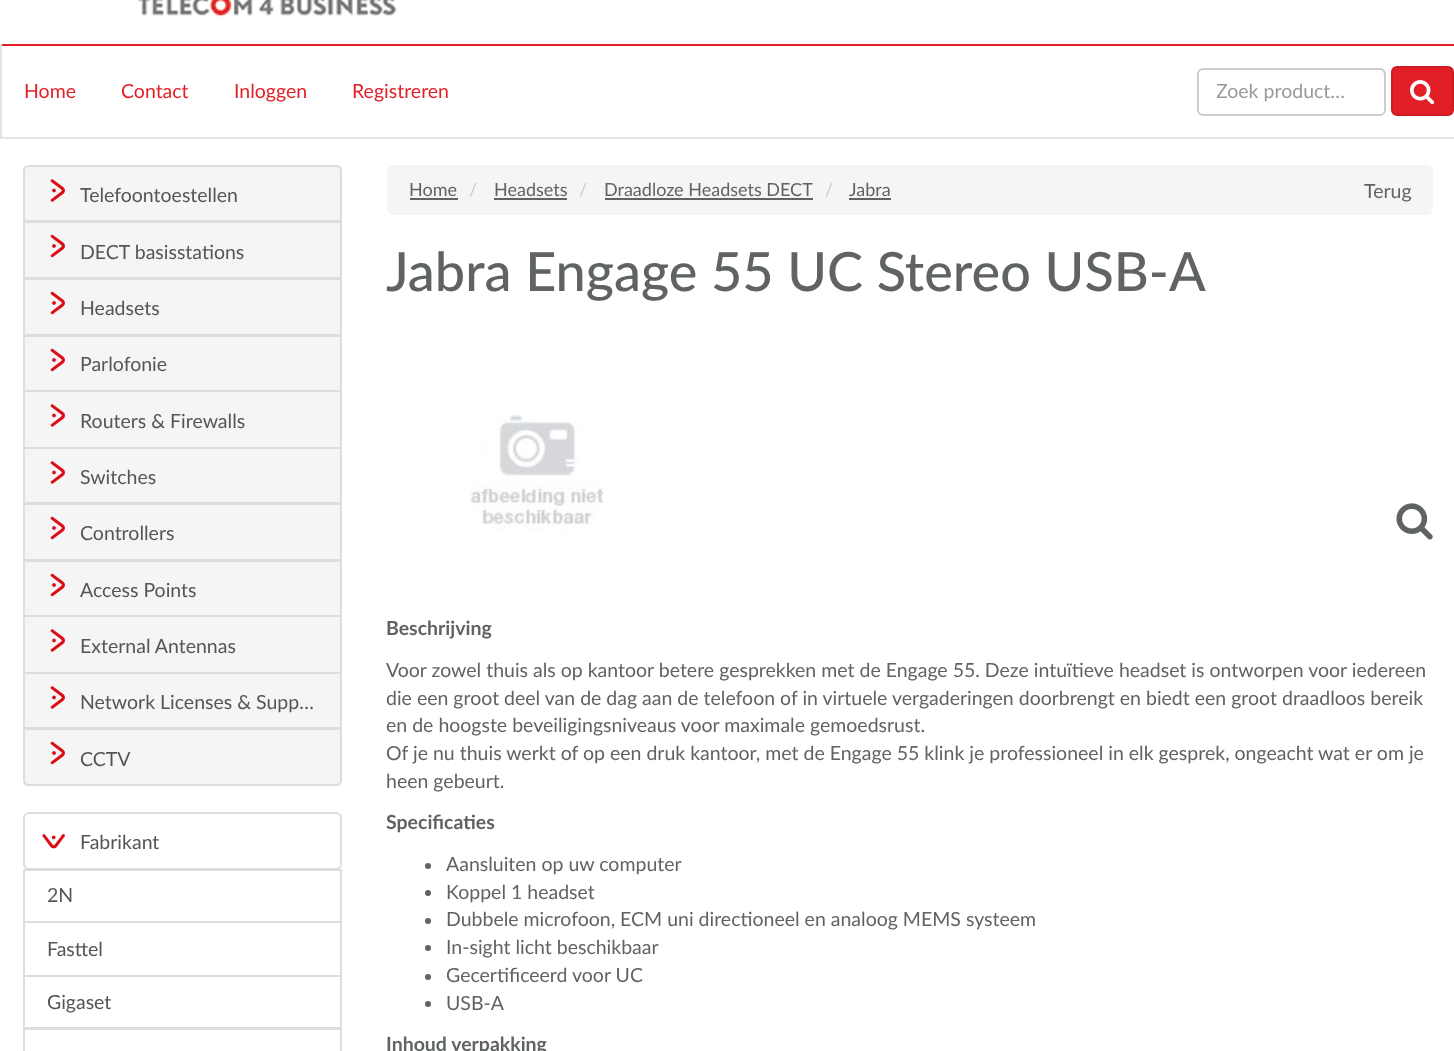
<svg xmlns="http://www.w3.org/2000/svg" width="1454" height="1051">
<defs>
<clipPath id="clip1"><rect x="1217" y="80" width="150" height="24"/></clipPath>
</defs>
<rect width="100%" height="100%" fill="#fff"/>
<image x="137" y="0" width="261" height="17" href="media/1.png"/>
<rect y="44" width="1454" height="2" fill="#e21f26"/>
<rect y="137" width="1454" height="2" fill="#e4e4e4"/>
<rect y="44" width="2" height="94" fill="#e4e4e4"/>
<text x="24" y="98" style="font-family:Lato;font-size:19.5px;fill:#e21f26">Home</text>
<text x="121" y="98" style="font-family:Lato;font-size:19.5px;fill:#e21f26">Contact</text>
<text x="234" y="98" style="font-family:Lato;font-size:19.5px;fill:#e21f26">Inloggen</text>
<text x="352" y="98" style="font-family:Lato;font-size:19.5px;fill:#e21f26">Registreren</text>
<path d="M1203 70h177c6 0 4 15 4 17v25c1-1 1-2 1-3v-35c0-3-2-5-5-5h-176c-2 0-4 1-5 3c1-1 3-2 4-2z" fill="#ececec"/>
<rect x="1198" y="69" width="187" height="46" rx="5" fill="none" stroke="#ccc" stroke-width="2"/>
<g clip-path="url(#clip1)">
<text x="1216" y="98" style="font-family:Lato;font-size:19.5px;fill:#999">Zoek product…</text>
</g>
<rect x="1392" y="67" width="61" height="48" rx="5" fill="#e21f26" stroke="#cd1b21" stroke-width="2"/>
<image x="1410" y="80" width="25" height="25" href="media/2.png"/>
<path d="M29 166h307c3 0 5 2 5 5v50h-317v-50c0-3 2-5 5-5z" fill="#f5f5f5" stroke="#ddd" stroke-width="2"/>
<image x="50" y="179" width="15" height="23" href="media/3.png"/>
<text x="80" y="202" style="font-family:Lato;font-size:19.5px;fill:#555">Telefoontoestellen</text>
<rect x="24" y="222" width="317" height="56" fill="#f5f5f5" stroke="#ddd" stroke-width="2"/>
<image x="50" y="234" width="15" height="24" href="media/4.png"/>
<text x="80" y="259" style="font-family:Lato;font-size:19.5px;fill:#555">DECT basisstations</text>
<rect x="24" y="279" width="317" height="56" fill="#f5f5f5" stroke="#ddd" stroke-width="2"/>
<image x="50" y="291" width="15" height="24" href="media/4.png"/>
<text x="80" y="315" style="font-family:Lato;font-size:19.5px;fill:#555">Headsets</text>
<rect x="24" y="336" width="317" height="55" fill="#f5f5f5" stroke="#ddd" stroke-width="2"/>
<image x="50" y="348" width="15" height="24" href="media/4.png"/>
<text x="80" y="371" style="font-family:Lato;font-size:19.5px;fill:#555">Parlofonie</text>
<rect x="24" y="391" width="317" height="57" fill="#f5f5f5" stroke="#ddd" stroke-width="2"/>
<image x="50" y="404" width="15" height="23" href="media/3.png"/>
<text x="80" y="428" style="font-family:Lato;font-size:19.5px;fill:#555">Routers &amp; Firewalls</text>
<rect x="24" y="448" width="317" height="55" fill="#f5f5f5" stroke="#ddd" stroke-width="2"/>
<image x="50" y="461" width="15" height="23" href="media/3.png"/>
<text x="80" y="484" style="font-family:Lato;font-size:19.5px;fill:#555">Switches</text>
<rect x="24" y="504" width="317" height="56" fill="#f5f5f5" stroke="#ddd" stroke-width="2"/>
<image x="50" y="516" width="15" height="24" href="media/4.png"/>
<text x="80" y="540" style="font-family:Lato;font-size:19.5px;fill:#555">Controllers</text>
<rect x="24" y="561" width="317" height="55" fill="#f5f5f5" stroke="#ddd" stroke-width="2"/>
<image x="50" y="573" width="15" height="24" href="media/4.png"/>
<text x="80" y="597" style="font-family:Lato;font-size:19.5px;fill:#555">Access Points</text>
<rect x="24" y="616" width="317" height="57" fill="#f5f5f5" stroke="#ddd" stroke-width="2"/>
<image x="50" y="629" width="15" height="23" href="media/3.png"/>
<text x="80" y="653" style="font-family:Lato;font-size:19.5px;fill:#555">External Antennas</text>
<rect x="24" y="673" width="317" height="55" fill="#f5f5f5" stroke="#ddd" stroke-width="2"/>
<image x="50" y="686" width="15" height="23" href="media/3.png"/>
<text x="80" y="709" style="font-family:Lato;font-size:19.5px;fill:#555">Network Licenses &amp; Supp…</text>
<path d="M24 729h317v51c0 3-2 5-5 5h-307c-3 0-5-2-5-5z" fill="#f5f5f5" stroke="#ddd" stroke-width="2"/>
<image x="50" y="741" width="15" height="24" href="media/4.png"/>
<text x="80" y="766" style="font-family:Lato;font-size:19.5px;fill:#555">CCTV</text>
<rect x="24" y="813" width="317" height="56" rx="5" fill="none" stroke="#ddd" stroke-width="2"/>
<image x="42" y="834" width="23" height="15" href="media/5.png"/>
<text x="80" y="849" style="font-family:Lato;font-size:19.5px;fill:#555">Fabrikant</text>
<rect x="24" y="870" width="317" height="52" fill="none" stroke="#ddd" stroke-width="2"/>
<text x="47" y="902" style="font-family:Lato;font-size:19.5px;fill:#555">2N</text>
<rect x="24" y="922" width="317" height="54" fill="none" stroke="#ddd" stroke-width="2"/>
<text x="47" y="956" style="font-family:Lato;font-size:19.5px;fill:#555">Fasttel</text>
<rect x="24" y="976" width="317" height="52" fill="none" stroke="#ddd" stroke-width="2"/>
<text x="47" y="1009" style="font-family:Lato;font-size:19.5px;fill:#555">Gigaset</text>
<rect x="24" y="1029" width="317" height="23" fill="none" stroke="#ddd" stroke-width="2"/>
<rect x="387" y="165" width="1046" height="50" rx="6" fill="#f5f5f5"/>
<text x="409" y="196" style="font-family:Lato;font-size:18px;fill:#5f6363">Home</text>
<rect x="410" y="198" width="48" height="2" fill="#5f6363"/>
<text x="469" y="196" style="font-family:Lato;font-size:18px;fill:#ccc">/</text>
<text x="494" y="196" style="font-family:Lato;font-size:18px;fill:#5f6363">Headsets</text>
<rect x="494" y="198" width="73" height="2" fill="#5f6363"/>
<text x="579" y="196" style="font-family:Lato;font-size:18px;fill:#ccc">/</text>
<text x="604" y="196" style="font-family:Lato;font-size:18px;fill:#5f6363">Draadloze Headsets DECT</text>
<rect x="605" y="198" width="208" height="2" fill="#5f6363"/>
<text x="825" y="196" style="font-family:Lato;font-size:18px;fill:#ccc">/</text>
<text x="849" y="196" style="font-family:Lato;font-size:18px;fill:#5f6363">Jabra</text>
<rect x="849" y="198" width="42" height="2" fill="#5f6363"/>
<text x="1364" y="198" style="font-family:Lato;font-size:19.5px;fill:#5f6363">Terug</text>
<text x="386" y="291" style="font-family:Lato;font-size:54px;font-weight:500;fill:#5f6363">Jabra Engage 55 UC Stereo USB-A</text>
<image x="470" y="414" width="134" height="117" href="media/6.png"/>
<image x="1396" y="503" width="37" height="37" href="media/7.png"/>
<text x="386" y="635" style="font-family:Lato;font-size:19.5px;font-weight:bold;fill:#5f6363">Beschrijving</text>
<text x="386" y="677" style="font-family:Lato;font-size:19.5px;fill:#5f6363">Voor zowel thuis als op kantoor betere gesprekken met de Engage 55. Deze intuïtieve headset is ontworpen voor iedereen</text>
<text x="386" y="705" style="font-family:Lato;font-size:19.5px;fill:#5f6363">die een groot deel van de dag aan de telefoon of in virtuele vergaderingen doorbrengt en biedt een groot draadloos bereik</text>
<text x="386" y="732" style="font-family:Lato;font-size:19.5px;fill:#5f6363">en de hoogste beveiligingsniveaus voor maximale gemoedsrust.</text>
<text x="386" y="760" style="font-family:Lato;font-size:19.5px;fill:#5f6363">Of je nu thuis werkt of op een druk kantoor, met de Engage 55 klink je professioneel in elk gesprek, ongeacht wat er om je</text>
<text x="386" y="788" style="font-family:Lato;font-size:19.5px;fill:#5f6363">heen gebeurt.</text>
<text x="386" y="829" style="font-family:Lato;font-size:19.5px;font-weight:bold;fill:#5f6363">Specificaties</text>
<circle cx="428" cy="866" r="3" fill="#5f6363"/>
<text x="446" y="871" style="font-family:Lato;font-size:19.5px;fill:#5f6363">Aansluiten op uw computer</text>
<circle cx="428" cy="893" r="3" fill="#5f6363"/>
<text x="446" y="899" style="font-family:Lato;font-size:19.5px;fill:#5f6363">Koppel 1 headset</text>
<circle cx="428" cy="921" r="3" fill="#5f6363"/>
<text x="446" y="926" style="font-family:Lato;font-size:19.5px;fill:#5f6363">Dubbele microfoon, ECM uni directioneel en analoog MEMS systeem</text>
<circle cx="428" cy="948" r="3" fill="#5f6363"/>
<text x="446" y="954" style="font-family:Lato;font-size:19.5px;fill:#5f6363">In-sight licht beschikbaar</text>
<circle cx="428" cy="977" r="3" fill="#5f6363"/>
<text x="446" y="982" style="font-family:Lato;font-size:19.5px;fill:#5f6363">Gecertificeerd voor UC</text>
<circle cx="428" cy="1004" r="3" fill="#5f6363"/>
<text x="446" y="1010" style="font-family:Lato;font-size:19.5px;fill:#5f6363">USB-A</text>
<text x="386" y="1051" style="font-family:Lato;font-size:19.5px;font-weight:bold;fill:#5f6363">Inhoud verpakking</text>
</svg>
